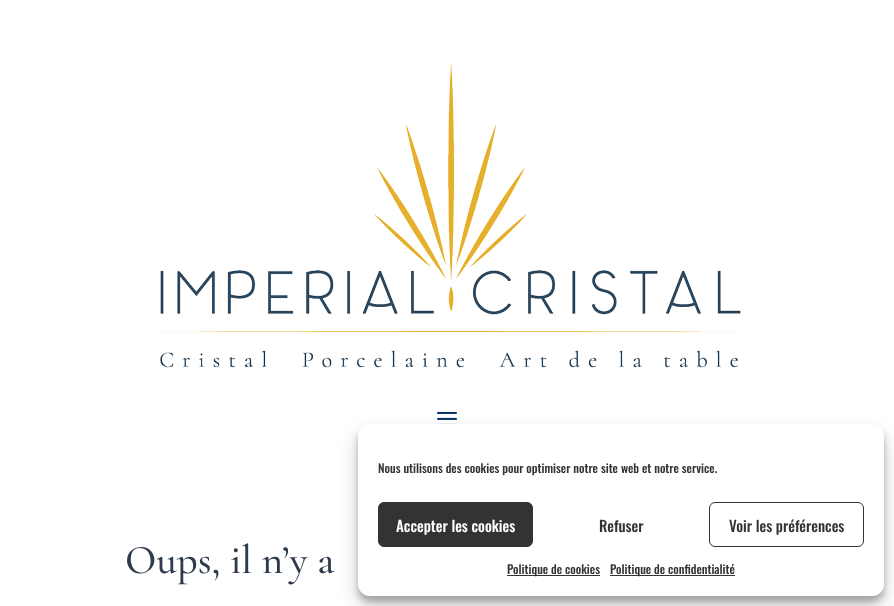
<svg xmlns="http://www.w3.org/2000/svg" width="894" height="606">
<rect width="100%" height="100%" fill="#fff"/>
<image x="160" y="62" width="581" height="306" href="media/1.png"/>
<image x="437" y="411" width="20" height="13" href="media/2.png"/>
<text x="125" y="573" style="font-family:Cormorant Garamond;font-size:41px;font-weight:500;fill:#2e3b4c">Oups, il n’y a</text>
<rect x="358" y="430" width="526" height="172" rx="12" fill="#0000003b" filter="blur(3px)"/>
<rect x="358" y="434" width="526" height="172" rx="12" fill="#00000030" filter="blur(10px)"/>
<rect x="358" y="424" width="526" height="172" rx="12" fill="#fff"/>
<text x="378" y="473" style="font-family:Oswald;font-size:12px;font-weight:500;fill:#333">Nous utilisons des cookies pour optimiser notre site web et notre service.</text>
<rect x="378.5" y="502.5" width="154" height="44" rx="5.5" fill="#333" stroke="#333"/>
<text x="396" y="532" style="font-family:Oswald;font-size:15px;font-weight:500;fill:#fff">Accepter les cookies</text>
<text x="599" y="532" style="font-family:Oswald;font-size:15px;font-weight:500;fill:#333">Refuser</text>
<rect x="709.5" y="502.5" width="154" height="44" rx="5.5" fill="none" stroke="#333"/>
<text x="729" y="532" style="font-family:Oswald;font-size:15px;font-weight:500;fill:#333">Voir les préférences</text>
<rect x="507" y="575" width="93" height="1" fill="#333"/>
<text x="507" y="574" style="font-family:Oswald;font-size:12px;font-weight:500;fill:#333">Politique de cookies</text>
<rect x="610" y="575" width="125" height="1" fill="#333"/>
<text x="610" y="574" style="font-family:Oswald;font-size:12px;font-weight:500;fill:#333">Politique de confidentialité</text>
</svg>
